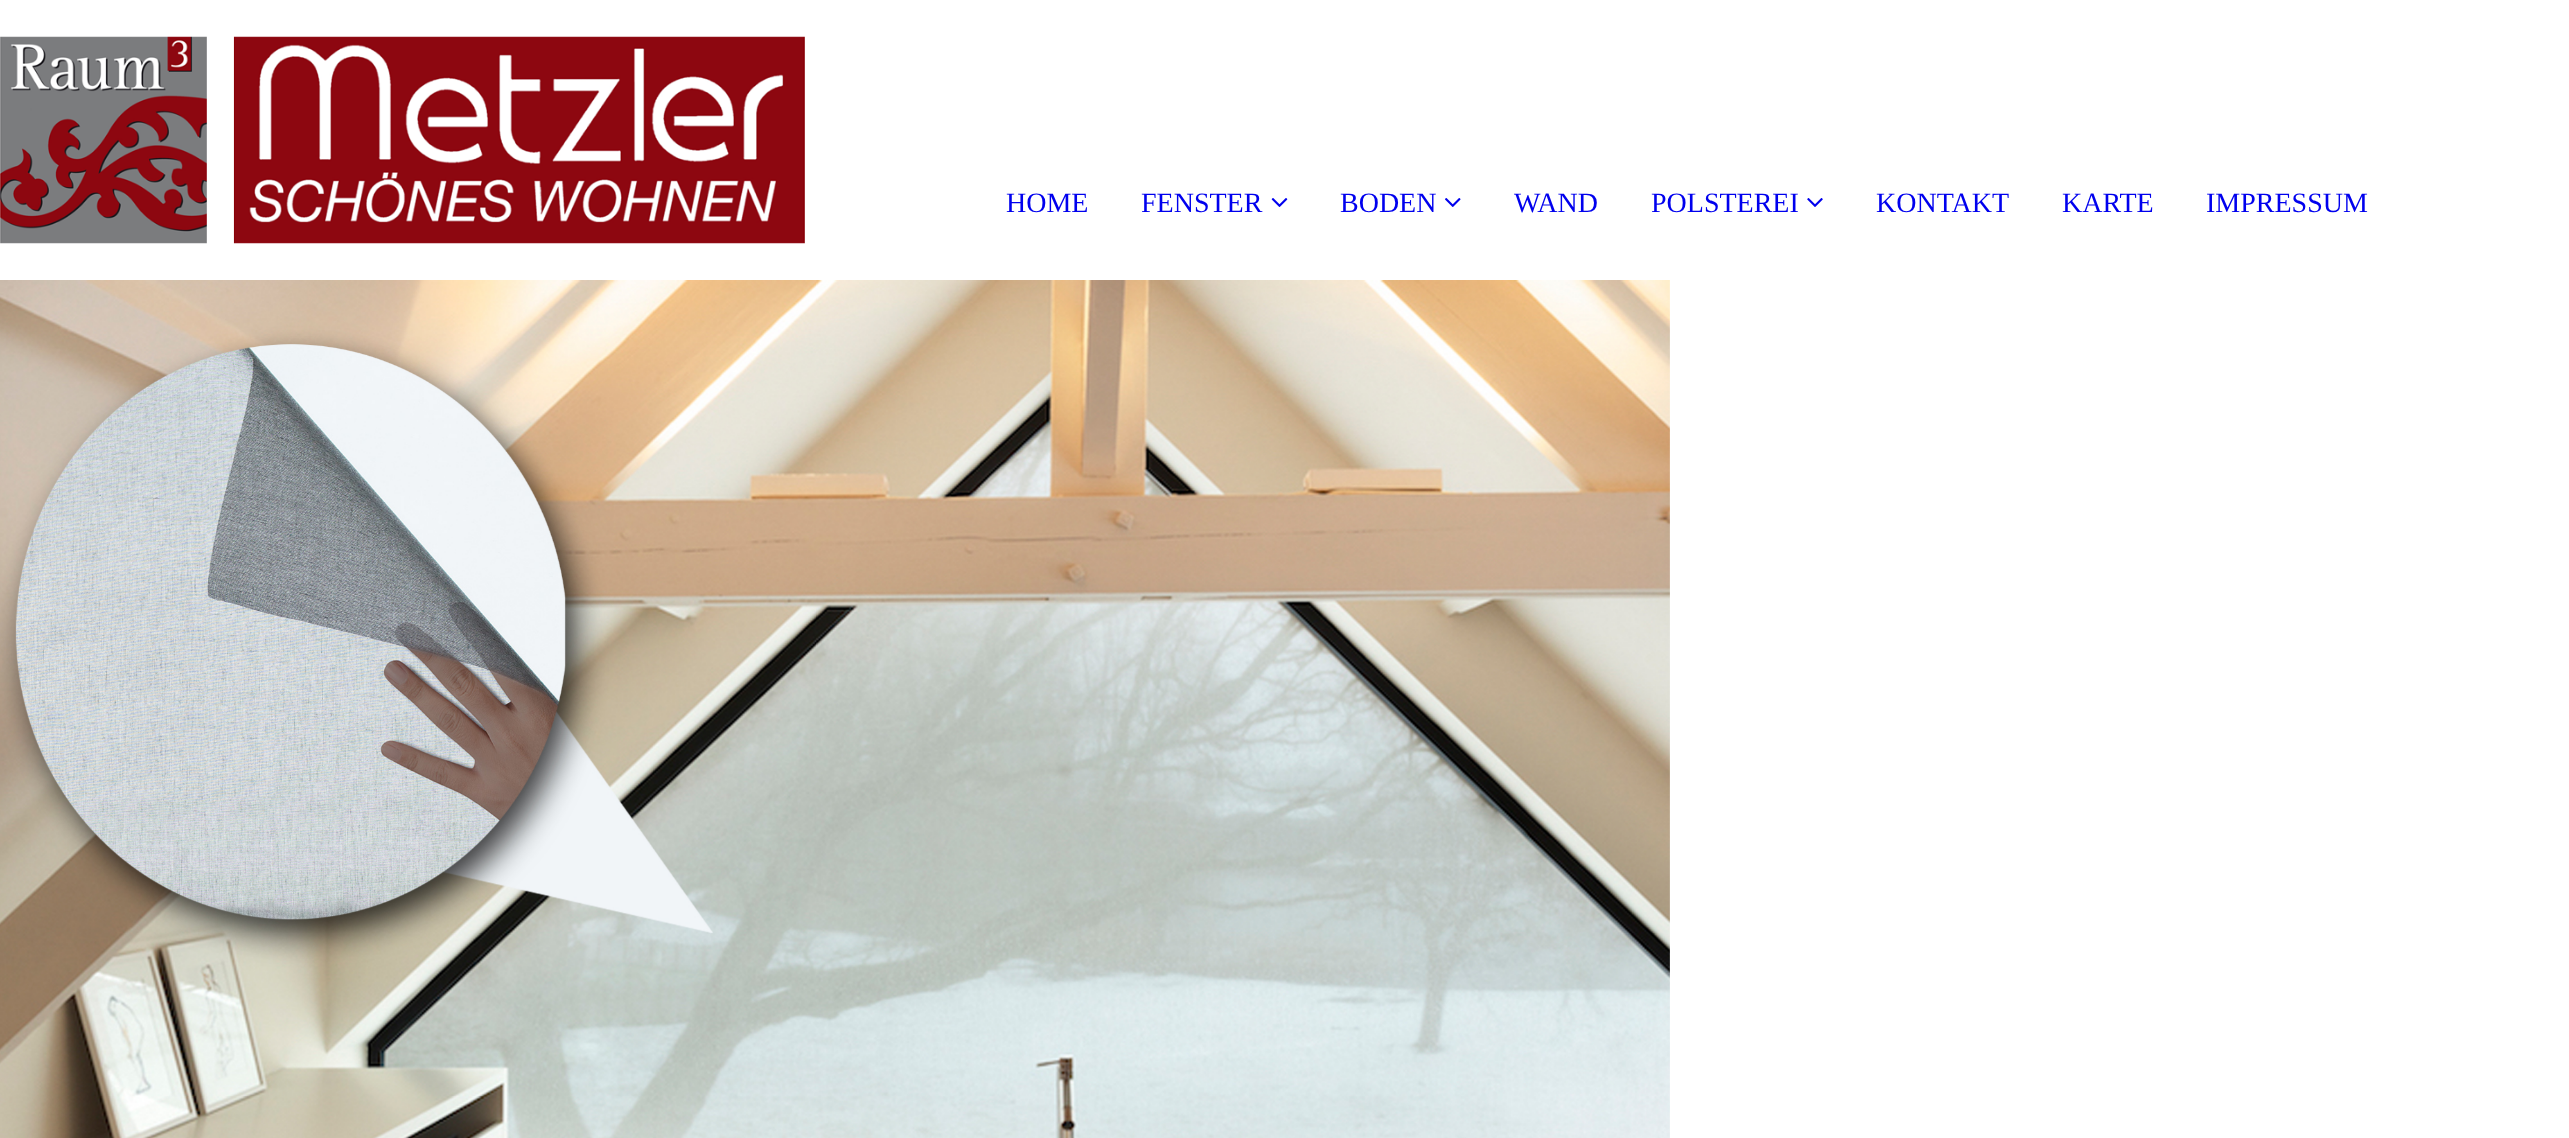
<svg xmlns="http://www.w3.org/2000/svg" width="2569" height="1138">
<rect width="100%" height="100%" fill="#fff"/>
<image x="0" y="36" width="805" height="208" href="media/1.png"/>
<text x="1006" y="212" style="font-family:Liberation Serif;font-size:28px;fill:#00e">HOME</text>
<text x="1141" y="212" style="font-family:Liberation Serif;font-size:28px;fill:#00e">FENSTER</text>
<image x="1271" y="198" width="17" height="9" href="media/2.png"/>
<text x="1340" y="212" style="font-family:Liberation Serif;font-size:28px;fill:#00e">BODEN</text>
<image x="1445" y="198" width="16" height="9" href="media/3.png"/>
<text x="1514" y="212" style="font-family:Liberation Serif;font-size:28px;fill:#00e">WAND</text>
<text x="1651" y="212" style="font-family:Liberation Serif;font-size:28px;fill:#00e">POLSTEREI</text>
<image x="1807" y="198" width="16" height="9" href="media/4.png"/>
<text x="1876" y="212" style="font-family:Liberation Serif;font-size:28px;fill:#00e">KONTAKT</text>
<text x="2062" y="212" style="font-family:Liberation Serif;font-size:28px;fill:#00e">KARTE</text>
<text x="2206" y="212" style="font-family:Liberation Serif;font-size:28px;fill:#00e">IMPRESSUM</text>
<image x="0" y="280" width="1670" height="858" href="media/5.png"/>
</svg>
